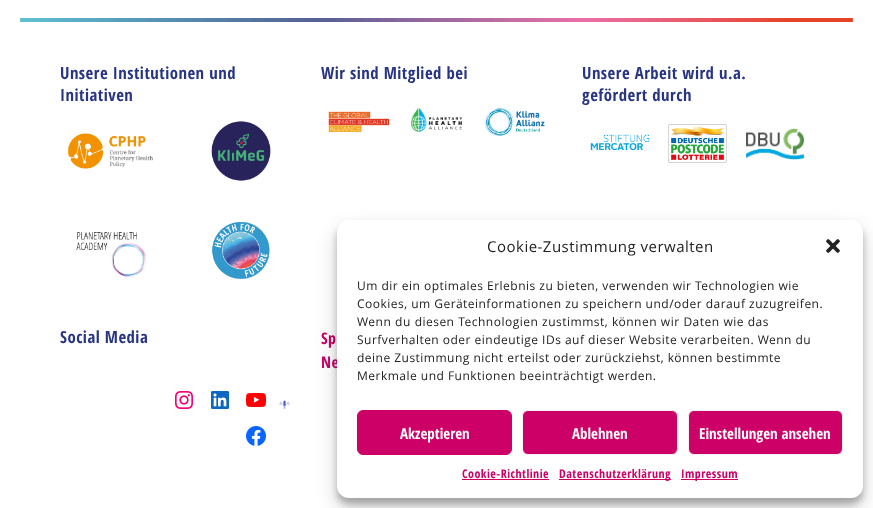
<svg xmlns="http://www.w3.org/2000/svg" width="873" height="508">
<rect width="100%" height="100%" fill="#fff"/>
<image x="20" y="18" width="833" height="4" href="media/1.png"/>
<text x="60" y="79" style="font-family:Open Sans Condensed;font-size:16.75px;font-weight:bold;letter-spacing:0.48px;fill:#283583">Unsere Institutionen und</text>
<text x="60" y="101" style="font-family:Open Sans Condensed;font-size:16.75px;font-weight:bold;letter-spacing:0.48px;fill:#283583">Initiativen</text>
<image x="67" y="133" width="86" height="36" href="media/2.png"/>
<image x="211" y="121" width="60" height="60" href="media/3.png"/>
<image x="76" y="232" width="70" height="45" href="media/4.png"/>
<image x="212" y="222" width="58" height="57" href="media/5.png"/>
<text x="321" y="79" style="font-family:Open Sans Condensed;font-size:16.75px;font-weight:bold;letter-spacing:0.48px;fill:#283583">Wir sind Mitglied bei</text>
<image x="328" y="111" width="62" height="21" href="media/6.png"/>
<image x="411" y="108" width="51" height="24" href="media/7.png"/>
<image x="484" y="108" width="61" height="28" href="media/8.png"/>
<text x="582" y="79" style="font-family:Open Sans Condensed;font-size:16.75px;font-weight:bold;letter-spacing:0.48px;fill:#283583">Unsere Arbeit wird u.a.</text>
<text x="582" y="101" style="font-family:Open Sans Condensed;font-size:16.75px;font-weight:bold;letter-spacing:0.48px;fill:#283583">gefördert durch</text>
<image x="590" y="134" width="60" height="17" href="media/9.png"/>
<image x="668" y="124" width="59" height="39" href="media/10.png"/>
<image x="746" y="128" width="59" height="32" href="media/11.png"/>
<text x="60" y="343" style="font-family:Open Sans Condensed;font-size:16.75px;font-weight:bold;letter-spacing:0.48px;fill:#283583">Social Media</text>
<image x="175" y="391" width="18" height="18" href="media/12.png"/>
<image x="211" y="391" width="18" height="18" href="media/13.png"/>
<image x="246" y="393" width="20" height="14" href="media/14.png"/>
<image x="246" y="426" width="20" height="20" href="media/15.png"/>
<image x="279" y="400" width="11" height="9" href="media/16.png"/>
<text x="321" y="344" style="font-family:Open Sans Condensed;font-size:16px;font-weight:bold;letter-spacing:0.48px;fill:#c06">Sp</text>
<text x="321" y="368" style="font-family:Open Sans Condensed;font-size:16px;font-weight:bold;letter-spacing:0.48px;fill:#c06">Ne</text>
<rect x="337" y="226" width="526" height="278" rx="12" fill="#0000003b" filter="blur(3px)"/>
<rect x="337" y="230" width="526" height="278" rx="12" fill="#00000030" filter="blur(10px)"/>
<rect x="337" y="220" width="526" height="278" rx="12" fill="#fff"/>
<text x="487" y="252" style="font-family:Open Sans;font-size:15px;letter-spacing:0.48px;fill:#222">Cookie-Zustimmung verwalten</text>
<image x="826" y="239" width="14" height="14" href="media/17.png"/>
<text x="357" y="290" style="font-family:Open Sans;font-size:12px;letter-spacing:0.48px;fill:#222">Um dir ein optimales Erlebnis zu bieten, verwenden wir Technologien wie</text>
<text x="357" y="308" style="font-family:Open Sans;font-size:12px;letter-spacing:0.48px;fill:#222">Cookies, um Geräteinformationen zu speichern und/oder darauf zuzugreifen.</text>
<text x="357" y="326" word-spacing="0.25" style="font-family:Open Sans;font-size:12px;letter-spacing:0.48px;fill:#222">Wenn du diesen Technologien zustimmst, können wir Daten wie das</text>
<text x="357" y="344" style="font-family:Open Sans;font-size:12px;letter-spacing:0.48px;fill:#222">Surfverhalten oder eindeutige IDs auf dieser Website verarbeiten. Wenn du</text>
<text x="357" y="362" style="font-family:Open Sans;font-size:12px;letter-spacing:0.48px;fill:#222">deine Zustimmung nicht erteilst oder zurückziehst, können bestimmte</text>
<text x="357" y="380" style="font-family:Open Sans;font-size:12px;letter-spacing:0.48px;fill:#222">Merkmale und Funktionen beeinträchtigt werden.</text>
<rect x="357.5" y="410.5" width="154" height="44" rx="5.5" fill="#c06" stroke="#c06"/>
<text x="400" y="439" style="font-family:Open Sans Condensed;font-size:15px;font-weight:bold;fill:#fff">Akzeptieren</text>
<rect x="522.5" y="410.5" width="155" height="44" rx="5.5" fill="#c06" stroke="#f2f2f2"/>
<text x="572" y="439" style="font-family:Open Sans Condensed;font-size:15px;font-weight:bold;fill:#fff">Ablehnen</text>
<rect x="688.5" y="410.5" width="154" height="44" rx="5.5" fill="#c06" stroke="#f2f2f2"/>
<text x="699" y="439" style="font-family:Open Sans Condensed;font-size:15px;font-weight:bold;fill:#fff">Einstellungen ansehen</text>
<text x="462" y="478" style="font-family:Open Sans Condensed;font-size:12px;font-weight:bold;letter-spacing:0.48px;fill:#c06">Cookie-Richtlinie</text>
<rect x="462" y="479" width="87" height="1" fill="#c06"/>
<rect x="559" y="479" width="112" height="1" fill="#c06"/>
<text x="559" y="478" style="font-family:Open Sans Condensed;font-size:12px;font-weight:bold;letter-spacing:0.48px;fill:#c06">Datenschutzerklärung</text>
<rect x="681" y="479" width="57" height="1" fill="#c06"/>
<text x="681" y="478" style="font-family:Open Sans Condensed;font-size:12px;font-weight:bold;letter-spacing:0.48px;fill:#c06">Impressum</text>
</svg>
